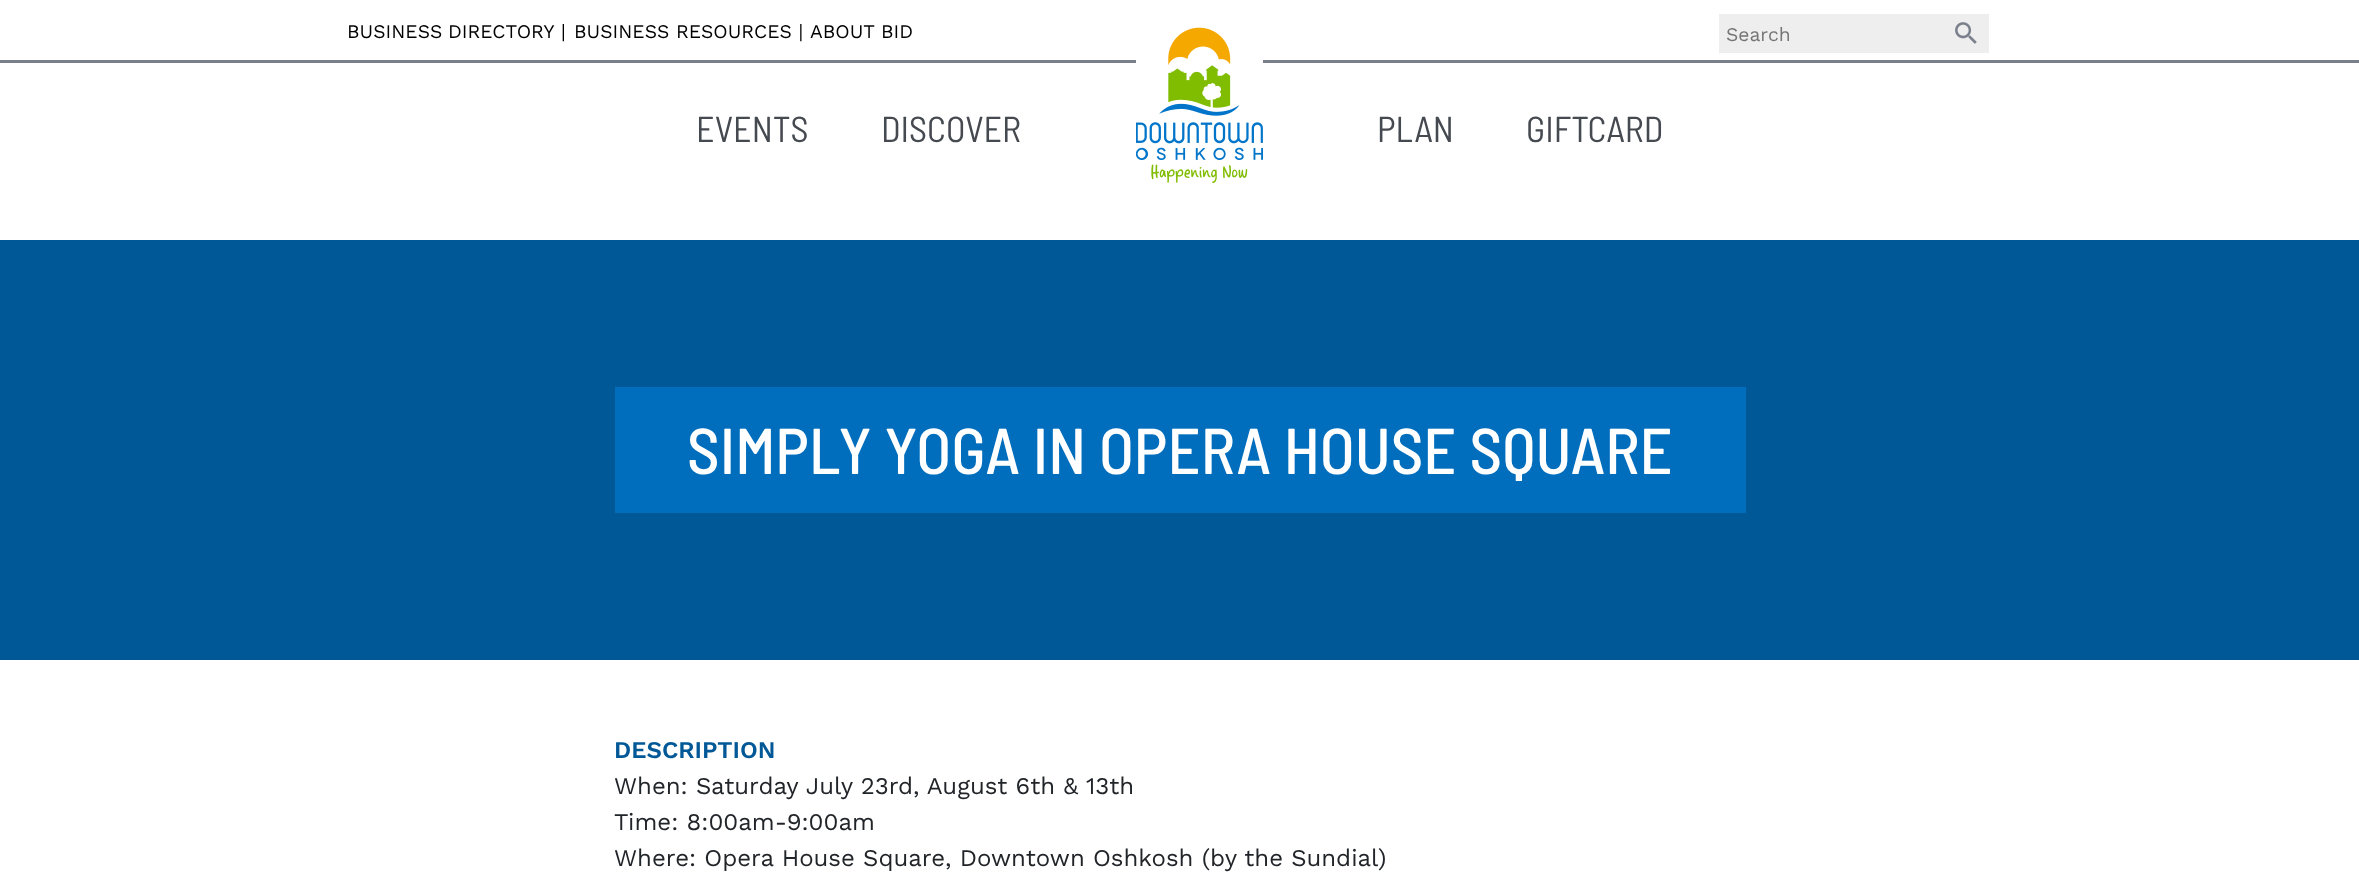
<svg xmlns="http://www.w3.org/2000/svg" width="2359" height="886">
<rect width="100%" height="100%" fill="#fff"/>
<rect y="60" width="2359" height="3" fill="#797f8b"/>
<text x="347" y="38" word-spacing="-1" style="font-family:Work Sans;font-size:19.25px;fill:#000">BUSINESS DIRECTORY</text>
<text x="561" y="38" style="font-family:Work Sans;font-size:19.25px;fill:#000">|</text>
<text x="574" y="38" style="font-family:Work Sans;font-size:19.25px;fill:#000">BUSINESS RESOURCES |</text>
<text x="810" y="38" style="font-family:Work Sans;font-size:19.25px;fill:#000">ABOUT BID</text>
<rect x="1719" y="14" width="270" height="39" fill="#eee"/>
<text x="1726" y="41" style="font-family:Work Sans;font-size:19.25px;fill:#757575">Search</text>
<image x="1955" y="22" width="22" height="22" href="media/1.png"/>
<text x="696" y="142" style="font-family:Barlow Semi Condensed;font-size:36px;fill:#454950">EVENTS</text>
<text x="881" y="142" style="font-family:Barlow Semi Condensed;font-size:36px;fill:#454950">DISCOVER</text>
<rect x="1136" y="60" width="127" height="3" fill="#fff"/>
<image x="1136" y="27" width="127" height="156" href="media/2.png"/>
<text x="1377" y="142" style="font-family:Barlow Semi Condensed;font-size:36px;fill:#454950">PLAN</text>
<text x="1526" y="142" style="font-family:Barlow Semi Condensed;font-size:36px;fill:#454950">GIFTCARD</text>
<rect y="240" width="2359" height="420" fill="#005897"/>
<rect x="615" y="387" width="1131" height="126" fill="#006ebd"/>
<text x="687" y="474" style="font-family:Barlow Semi Condensed;font-size:64.5px;font-weight:500;fill:#fff">SIMPLY YOGA IN OPERA HOUSE SQUARE</text>
<text x="614" y="758" style="font-family:Work Sans;font-size:24px;font-weight:600;fill:#005897">DESCRIPTION</text>
<text x="614" y="794" style="font-family:Work Sans;font-size:24px;fill:#212529">When: Saturday July 23rd, August 6th &amp; 13th</text>
<text x="614" y="830" style="font-family:Work Sans;font-size:24px;fill:#212529">Time: 8:00am-9:00am</text>
<text x="614" y="866" style="font-family:Work Sans;font-size:24px;fill:#212529">Where: Opera House Square, Downtown Oshkosh (by the Sundial)</text>
</svg>
